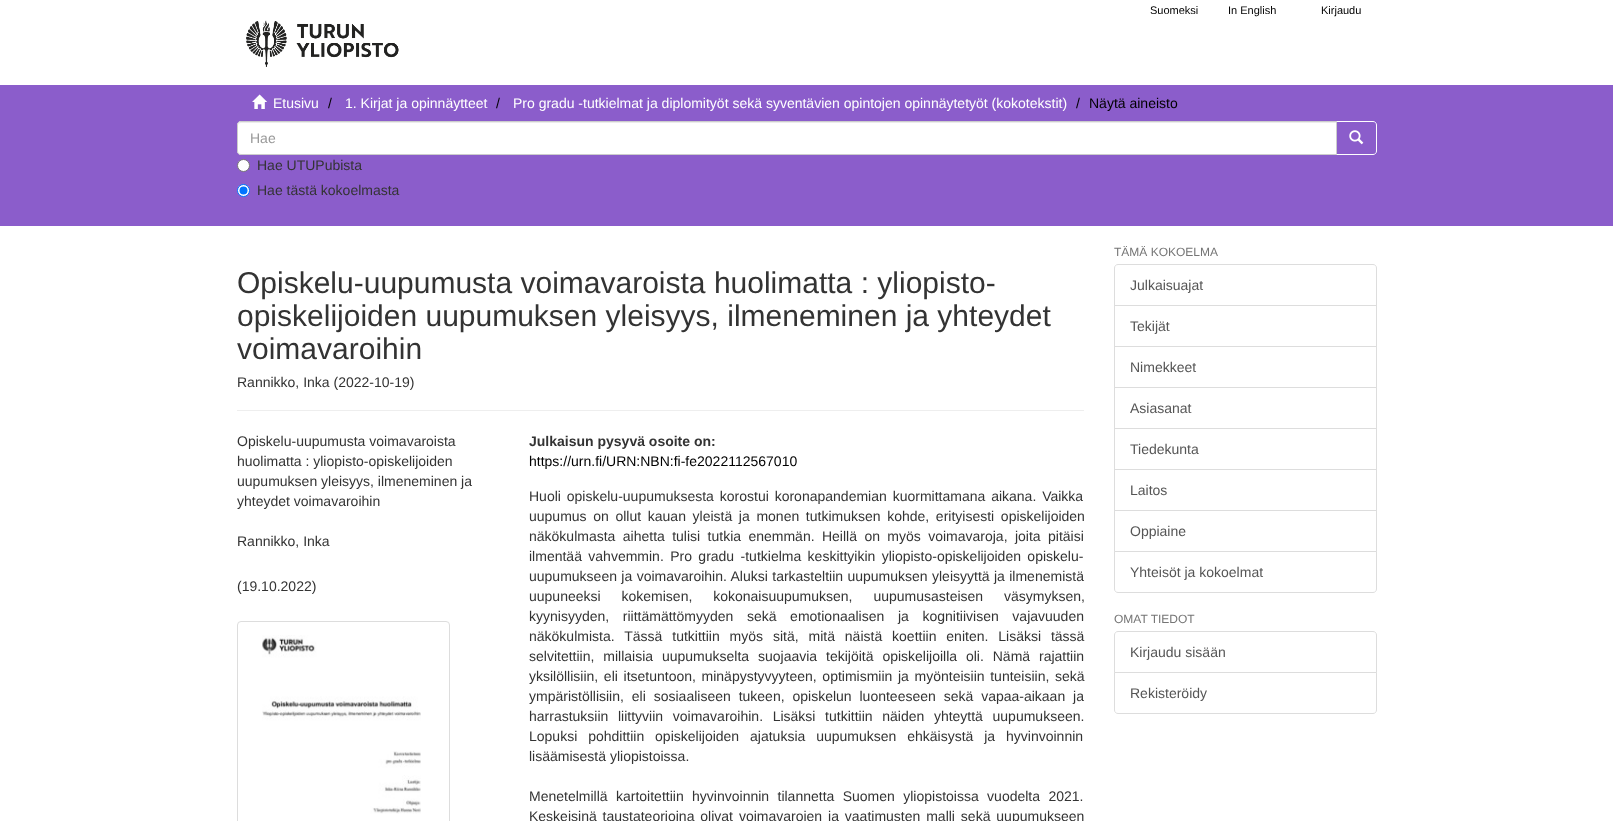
<svg xmlns="http://www.w3.org/2000/svg" width="1613" height="821">
<rect width="100%" height="100%" fill="#fff"/>
<text x="1150" y="14" style="font-family:Liberation Sans;font-size:11px;fill:#000">Suomeksi</text>
<text x="1228" y="14" style="font-family:Liberation Sans;font-size:11px;fill:#000">In English</text>
<text x="1321" y="14" style="font-family:Liberation Sans;font-size:11px;fill:#000">Kirjaudu</text>
<image x="246" y="20" width="153" height="47" href="media/1.png"/>
<rect y="85" width="1613" height="141" fill="#8b5dcb"/>
<image x="252" y="94" width="15" height="15" href="media/2.png"/>
<text x="273" y="108" style="font-family:Liberation Sans;font-size:14px;fill:#fff">Etusivu</text>
<text x="328" y="108" style="font-family:Liberation Sans;font-size:14px;fill:#000">/</text>
<text x="345" y="108" style="font-family:Liberation Sans;font-size:14px;fill:#fff">1. Kirjat ja opinnäytteet</text>
<text x="496" y="108" style="font-family:Liberation Sans;font-size:14px;fill:#000">/</text>
<text x="513" y="108" style="font-family:Liberation Sans;font-size:14px;fill:#fff">Pro gradu -tutkielmat ja diplomityöt sekä syventävien opintojen opinnäytetyöt (kokotekstit)</text>
<text x="1076" y="108" style="font-family:Liberation Sans;font-size:14px;fill:#000">/</text>
<text x="1089" y="108" style="font-family:Liberation Sans;font-size:14px;fill:#000">Näytä aineisto</text>
<path d="M1336.5 121.5h36.5c2 0 3.5 1.5 3.5 3.5v26c0 2-1.5 3.5-3.5 3.5h-36.5z" fill="none" stroke="#fff"/>
<path d="M241 121h1096v34h-1096c-2 0-4-2-4-4v-26c0-2 2-4 4-4z" fill="#fff"/>
<path d="M241 123h1095v-1h-1095c-2 0-3 2-3 4c0-2 1-3 3-3z" fill="#ececec"/>
<path d="M241 121.5h1095.5v33h-1095.5c-2 0-3.5-1.5-3.5-3.5v-26c0-2 1.5-3.5 3.5-3.5z" fill="none" stroke="#ccc"/>
<text x="250" y="143" style="font-family:Liberation Sans;font-size:14px;fill:#999">Hae</text>
<image x="1349" y="130" width="15" height="15" href="media/3.png"/>
<circle cx="243.5" cy="165.5" r="6" fill="#fff" stroke="#767676"/>
<text x="257" y="170" style="font-family:Liberation Sans;font-size:14px;fill:#333">Hae UTUPubista</text>
<circle cx="243.5" cy="190.5" r="6" fill="#fff" stroke="#0075ff"/>
<circle cx="243.5" cy="190.5" r="4" fill="#0075ff"/>
<text x="257" y="195" style="font-family:Liberation Sans;font-size:14px;fill:#333">Hae tästä kokoelmasta</text>
<text x="237" y="293" style="font-family:Liberation Sans;font-size:30px;fill:#333">Opiskelu-uupumusta voimavaroista huolimatta : yliopisto-</text>
<text x="237" y="326" style="font-family:Liberation Sans;font-size:30px;fill:#333">opiskelijoiden uupumuksen yleisyys, ilmeneminen ja yhteydet</text>
<text x="237" y="359" style="font-family:Liberation Sans;font-size:30px;fill:#333">voimavaroihin</text>
<text x="237" y="387" style="font-family:Liberation Sans;font-size:14px;fill:#333">Rannikko, Inka (2022-10-19)</text>
<rect x="237" y="410" width="847" height="1" fill="#eee"/>
<text x="237" y="446" style="font-family:Liberation Sans;font-size:14px;fill:#333">Opiskelu-uupumusta voimavaroista</text>
<text x="237" y="466" style="font-family:Liberation Sans;font-size:14px;fill:#333">huolimatta : yliopisto-opiskelijoiden</text>
<text x="237" y="486" style="font-family:Liberation Sans;font-size:14px;fill:#333">uupumuksen yleisyys, ilmeneminen ja</text>
<text x="237" y="506" style="font-family:Liberation Sans;font-size:14px;fill:#333">yhteydet voimavaroihin</text>
<text x="237" y="546" style="font-family:Liberation Sans;font-size:14px;fill:#333">Rannikko, Inka</text>
<text x="237" y="591" style="font-family:Liberation Sans;font-size:14px;fill:#333">(19.10.2022)</text>
<rect x="237.5" y="621.5" width="212" height="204" rx="3.5" fill="none" stroke="#ddd"/>
<image x="262" y="635" width="159" height="179" href="media/4.png"/>
<text x="529" y="446" style="font-family:Liberation Sans;font-size:14px;font-weight:bold;fill:#333">Julkaisun pysyvä osoite on:</text>
<text x="529" y="466" style="font-family:Liberation Sans;font-size:14px;fill:#000">https://urn.fi/URN:NBN:fi-fe2022112567010</text>
<text x="529" y="501" word-spacing="2" style="font-family:Liberation Sans;font-size:14px;fill:#333">Huoli opiskelu-uupumuksesta korostui koronapandemian kuormittamana aikana. Vaikka</text>
<text x="529" y="521" word-spacing="2.75" style="font-family:Liberation Sans;font-size:14px;fill:#333">uupumus on ollut kauan yleistä ja monen tutkimuksen kohde, erityisesti opiskelijoiden</text>
<text x="529" y="541" word-spacing="3.5" style="font-family:Liberation Sans;font-size:14px;fill:#333">näkökulmasta aihetta tulisi tutkia enemmän. Heillä on myös voimavaroja, joita pitäisi</text>
<text x="529" y="561" word-spacing="2.5" style="font-family:Liberation Sans;font-size:14px;fill:#333">ilmentää vahvemmin. Pro gradu -tutkielma keskittyikin yliopisto-opiskelijoiden opiskelu-</text>
<text x="529" y="581" word-spacing="0.5" style="font-family:Liberation Sans;font-size:14px;fill:#333">uupumukseen ja voimavaroihin. Aluksi tarkasteltiin uupumuksen yleisyyttä ja ilmenemistä</text>
<text x="529" y="601" word-spacing="17" style="font-family:Liberation Sans;font-size:14px;fill:#333">uupuneeksi kokemisen, kokonaisuupumuksen, uupumusasteisen väsymyksen,</text>
<text x="529" y="621" word-spacing="9.75" style="font-family:Liberation Sans;font-size:14px;fill:#333">kyynisyyden, riittämättömyyden sekä emotionaalisen ja kognitiivisen vajavuuden</text>
<text x="529" y="641" word-spacing="6" style="font-family:Liberation Sans;font-size:14px;fill:#333">näkökulmista. Tässä tutkittiin myös sitä, mitä näistä koettiin eniten. Lisäksi tässä</text>
<text x="529" y="661" word-spacing="5" style="font-family:Liberation Sans;font-size:14px;fill:#333">selvitettiin, millaisia uupumukselta suojaavia tekijöitä opiskelijoilla oli. Nämä rajattiin</text>
<text x="529" y="681" word-spacing="1.75" style="font-family:Liberation Sans;font-size:14px;fill:#333">yksilöllisiin, eli itsetuntoon, minäpystyvyyteen, optimismiin ja myönteisiin tunteisiin, sekä</text>
<text x="529" y="701" word-spacing="4" style="font-family:Liberation Sans;font-size:14px;fill:#333">ympäristöllisiin, eli sosiaaliseen tukeen, opiskelun luonteeseen sekä vapaa-aikaan ja</text>
<text x="529" y="721" word-spacing="5.75" style="font-family:Liberation Sans;font-size:14px;fill:#333">harrastuksiin liittyviin voimavaroihin. Lisäksi tutkittiin näiden yhteyttä uupumukseen.</text>
<text x="529" y="741" word-spacing="7" style="font-family:Liberation Sans;font-size:14px;fill:#333">Lopuksi pohdittiin opiskelijoiden ajatuksia uupumuksen ehkäisystä ja hyvinvoinnin</text>
<text x="529" y="761" style="font-family:Liberation Sans;font-size:14px;fill:#333">lisäämisestä yliopistoissa.</text>
<text x="529" y="801" word-spacing="4.5" style="font-family:Liberation Sans;font-size:14px;fill:#333">Menetelmillä kartoitettiin hyvinvoinnin tilannetta Suomen yliopistoissa vuodelta 2021.</text>
<text x="529" y="821" word-spacing="2" style="font-family:Liberation Sans;font-size:14px;fill:#333">Keskeisinä taustateorioina olivat voimavarojen ja vaatimusten malli sekä uupumukseen</text>
<text x="1114" y="256" style="font-family:Liberation Sans;font-size:12px;fill:#757575">TÄMÄ KOKOELMA</text>
<path d="M1118 264.5h255c2 0 3.5 1.5 3.5 3.5v37.5h-262v-37.5c0-2 1.5-3.5 3.5-3.5z" fill="none" stroke="#ddd"/>
<text x="1130" y="290" style="font-family:Liberation Sans;font-size:14px;fill:#555">Julkaisuajat</text>
<rect x="1114.5" y="305.5" width="262" height="41" fill="none" stroke="#ddd"/>
<text x="1130" y="331" style="font-family:Liberation Sans;font-size:14px;fill:#555">Tekijät</text>
<rect x="1114.5" y="346.5" width="262" height="41" fill="none" stroke="#ddd"/>
<text x="1130" y="372" style="font-family:Liberation Sans;font-size:14px;fill:#555">Nimekkeet</text>
<rect x="1114.5" y="387.5" width="262" height="41" fill="none" stroke="#ddd"/>
<text x="1130" y="413" style="font-family:Liberation Sans;font-size:14px;fill:#555">Asiasanat</text>
<rect x="1114.5" y="428.5" width="262" height="41" fill="none" stroke="#ddd"/>
<text x="1130" y="454" style="font-family:Liberation Sans;font-size:14px;fill:#555">Tiedekunta</text>
<rect x="1114.5" y="469.5" width="262" height="41" fill="none" stroke="#ddd"/>
<text x="1130" y="495" style="font-family:Liberation Sans;font-size:14px;fill:#555">Laitos</text>
<rect x="1114.5" y="510.5" width="262" height="41" fill="none" stroke="#ddd"/>
<text x="1130" y="536" style="font-family:Liberation Sans;font-size:14px;fill:#555">Oppiaine</text>
<path d="M1114.5 551.5h262v37.5c0 2-1.5 3.5-3.5 3.5h-255c-2 0-3.5-1.5-3.5-3.5z" fill="#fff" stroke="#ddd"/>
<text x="1130" y="577" style="font-family:Liberation Sans;font-size:14px;fill:#555">Yhteisöt ja kokoelmat</text>
<text x="1114" y="623" style="font-family:Liberation Sans;font-size:12px;fill:#757575">OMAT TIEDOT</text>
<path d="M1118 631.5h255c2 0 3.5 1.5 3.5 3.5v37.5h-262v-37.5c0-2 1.5-3.5 3.5-3.5z" fill="none" stroke="#ddd"/>
<text x="1130" y="657" style="font-family:Liberation Sans;font-size:14px;fill:#555">Kirjaudu sisään</text>
<path d="M1114.5 672.5h262v37.5c0 2-1.5 3.5-3.5 3.5h-255c-2 0-3.5-1.5-3.5-3.5z" fill="#fff" stroke="#ddd"/>
<text x="1130" y="698" style="font-family:Liberation Sans;font-size:14px;fill:#555">Rekisteröidy</text>
</svg>
